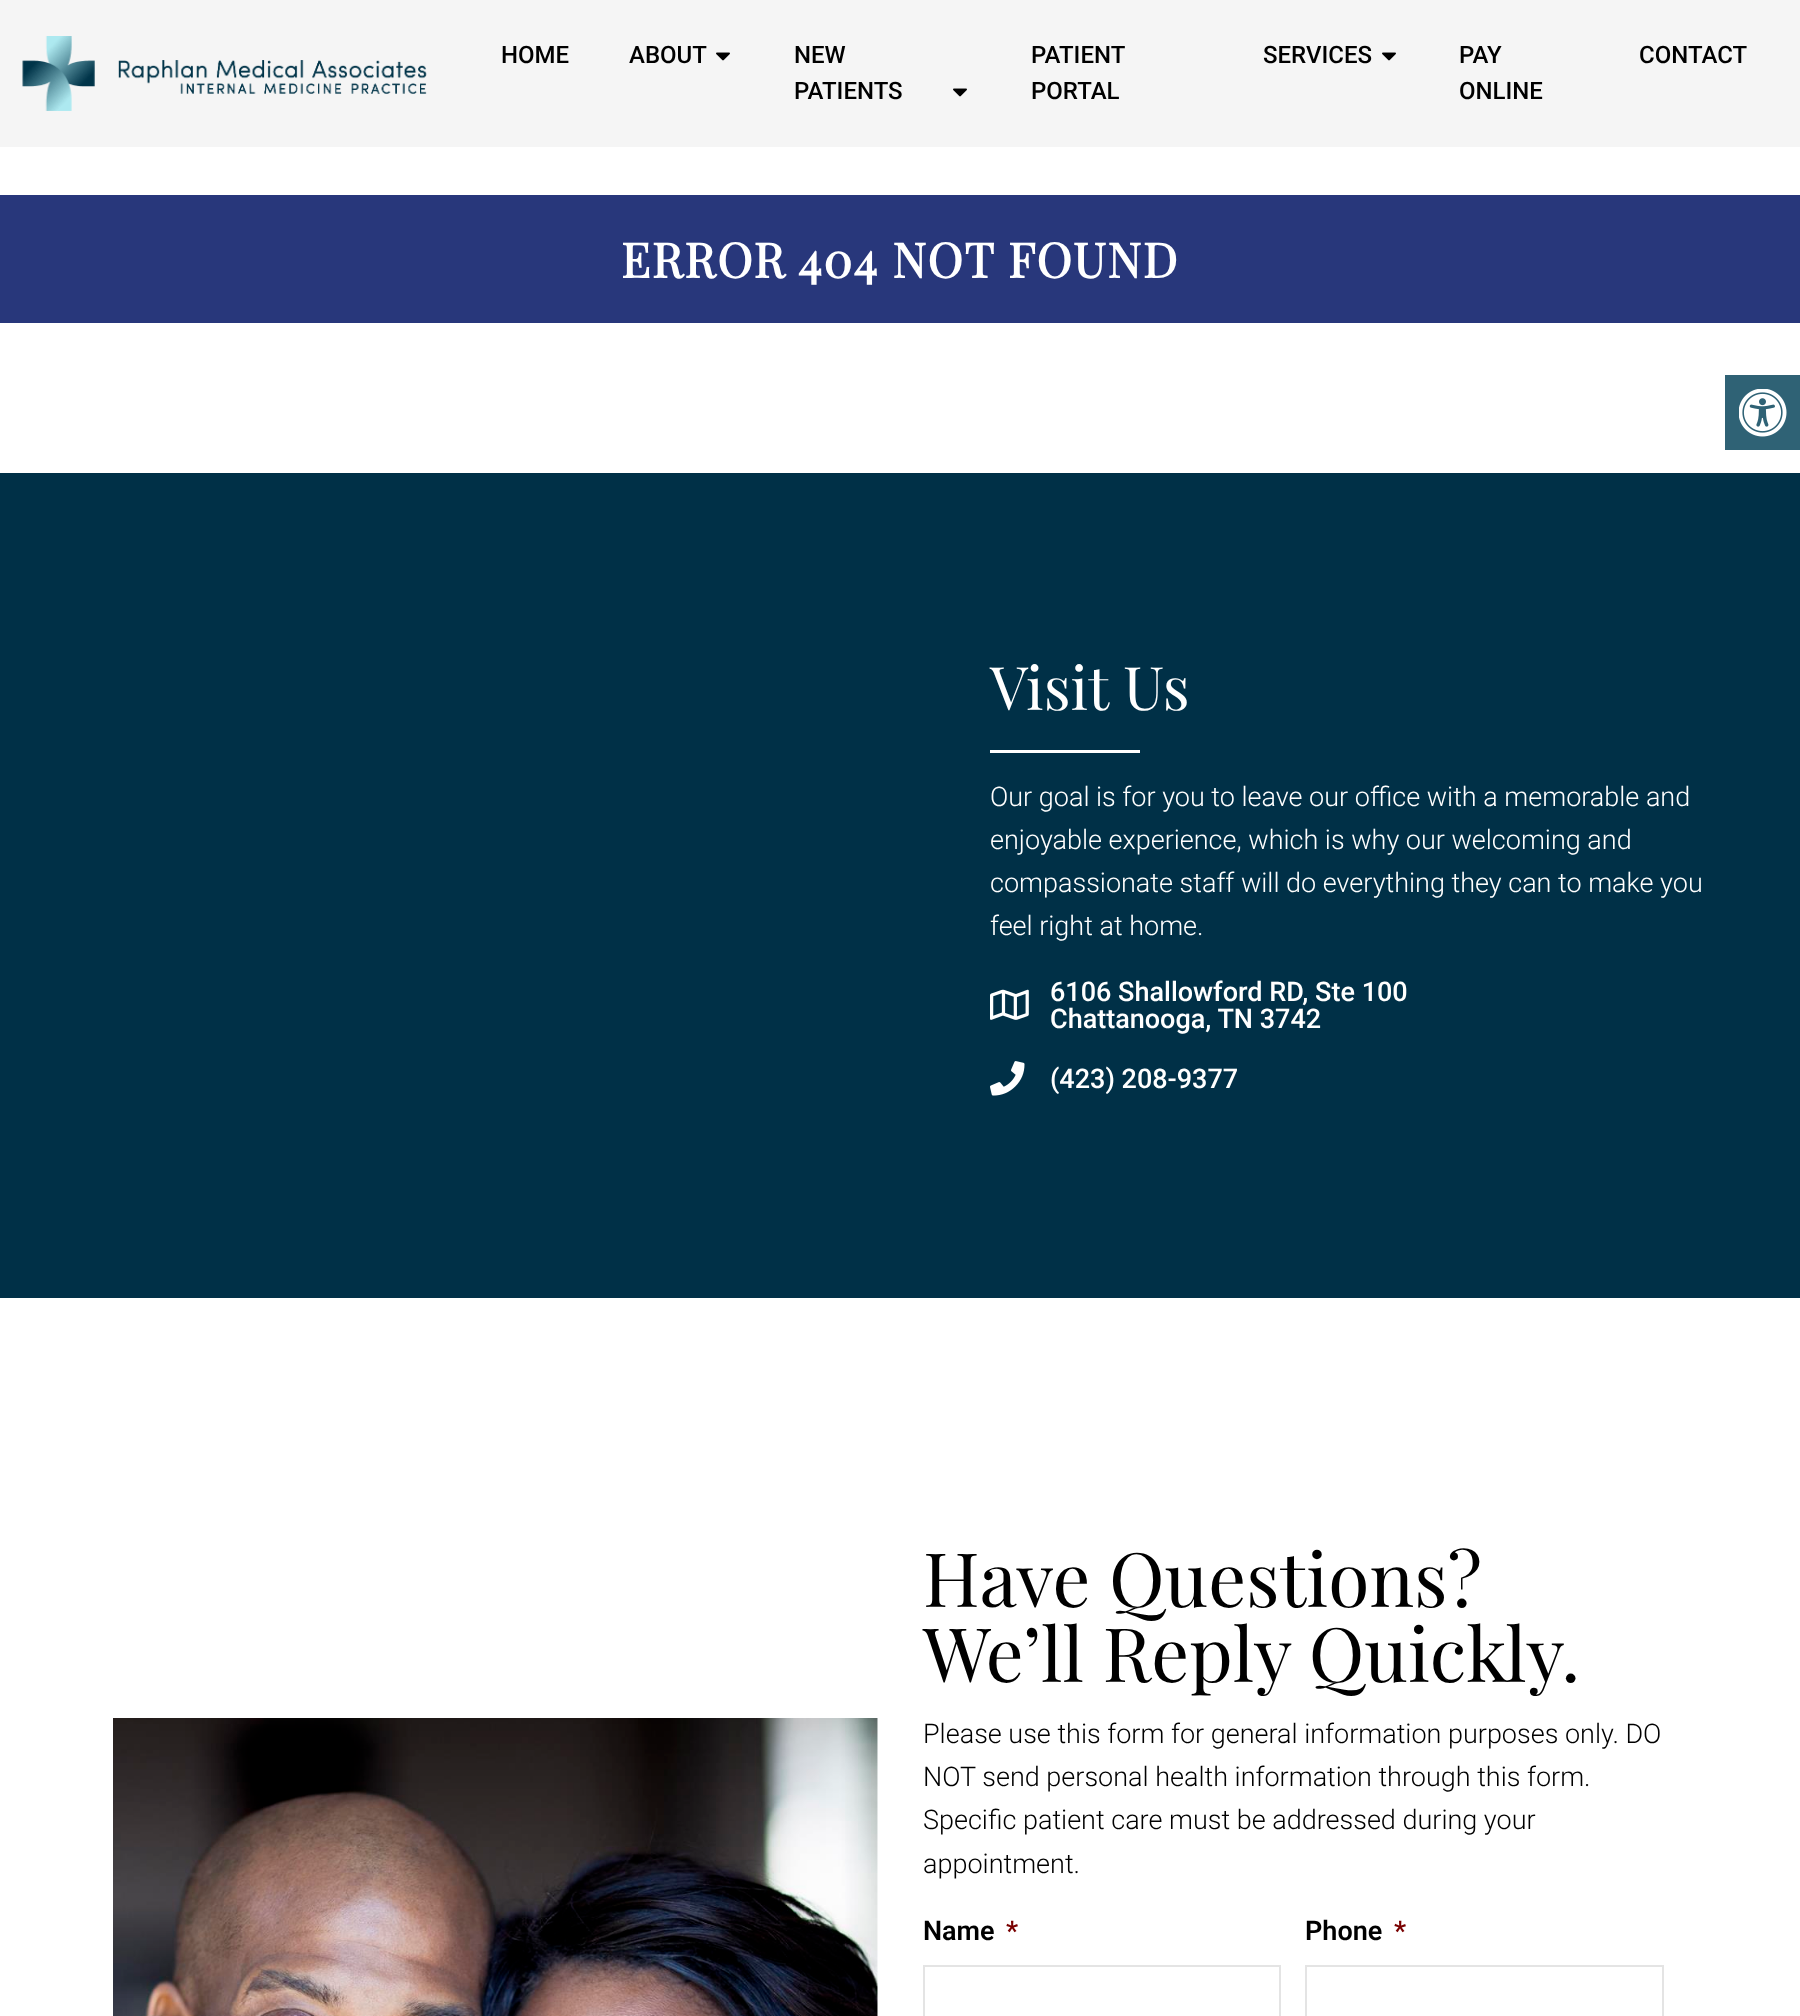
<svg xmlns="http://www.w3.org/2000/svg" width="1800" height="2016">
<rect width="100%" height="100%" fill="#fff"/>
<rect width="1800" height="147" fill="#f5f5f5"/>
<image x="22" y="36" width="405" height="75" href="media/1.png"/>
<text x="501" y="63" style="font-family:Roboto;font-size:24px;font-weight:500;fill:#000">HOME</text>
<text x="629" y="63" style="font-family:Roboto;font-size:24px;font-weight:500;fill:#000">ABOUT</text>
<image x="716" y="52" width="14" height="9" href="media/2.png"/>
<text x="794" y="63" style="font-family:Roboto;font-size:24px;font-weight:500;fill:#000">NEW</text>
<text x="794" y="99" style="font-family:Roboto;font-size:24px;font-weight:500;fill:#000">PATIENTS</text>
<image x="953" y="88" width="14" height="9" href="media/2.png"/>
<text x="1031" y="63" style="font-family:Roboto;font-size:24px;font-weight:500;fill:#000">PATIENT</text>
<text x="1031" y="99" style="font-family:Roboto;font-size:24px;font-weight:500;fill:#000">PORTAL</text>
<text x="1263" y="63" style="font-family:Roboto;font-size:24px;font-weight:500;fill:#000">SERVICES</text>
<image x="1382" y="52" width="14" height="9" href="media/2.png"/>
<text x="1459" y="63" style="font-family:Roboto;font-size:24px;font-weight:500;fill:#000">PAY</text>
<text x="1459" y="99" style="font-family:Roboto;font-size:24px;font-weight:500;fill:#000">ONLINE</text>
<text x="1639" y="63" style="font-family:Roboto;font-size:24px;font-weight:500;fill:#000">CONTACT</text>
<rect y="195" width="1800" height="128" fill="#28377b"/>
<text x="621" y="278" style="font-family:Playfair Display;font-size:48px;font-weight:bold;letter-spacing:1.5px;fill:#fff">ERROR 404 NOT FOUND</text>
<rect y="473" width="1800" height="825" fill="#003047"/>
<text x="990" y="710" style="font-family:Playfair Display;font-size:60px;fill:#fff">Visit Us</text>
<rect x="990" y="750" width="150" height="3" fill="#fff"/>
<text x="990" y="806" style="font-family:Roboto;font-size:27px;font-weight:300;fill:#fff">Our goal is for you to leave our office with a memorable and</text>
<text x="990" y="849" style="font-family:Roboto;font-size:27px;font-weight:300;fill:#fff">enjoyable experience, which is why our welcoming and</text>
<text x="990" y="892" style="font-family:Roboto;font-size:27px;font-weight:300;fill:#fff">compassionate staff will do everything they can to make you</text>
<text x="990" y="935" style="font-family:Roboto;font-size:27px;font-weight:300;fill:#fff">feel right at home.</text>
<image x="990" y="989" width="39" height="31" href="media/3.png"/>
<text x="1050" y="1001" style="font-family:Roboto;font-size:27px;font-weight:500;fill:#fff">6106 Shallowford RD, Ste 100</text>
<text x="1050" y="1028" style="font-family:Roboto;font-size:27px;font-weight:500;fill:#fff">Chattanooga, TN 3742</text>
<image x="990" y="1061" width="35" height="35" href="media/4.png"/>
<text x="1050" y="1088" style="font-family:Roboto;font-size:27px;font-weight:500;fill:#fff">(423) 208-9377</text>
<image x="113" y="1718" width="765" height="298" href="media/5.png"/>
<text x="923" y="1607" style="font-family:Playfair Display;font-size:75px;fill:#000">Have Questions?</text>
<text x="923" y="1682" style="font-family:Playfair Display;font-size:75px;fill:#000">We’ll Reply Quickly.</text>
<text x="923" y="1743" style="font-family:Roboto;font-size:27px;font-weight:300;fill:#000">Please use this form for general information purposes only. DO</text>
<text x="923" y="1786" style="font-family:Roboto;font-size:27px;font-weight:300;fill:#000">NOT send personal health information through this form.</text>
<text x="923" y="1829" style="font-family:Roboto;font-size:27px;font-weight:300;fill:#000">Specific patient care must be addressed during your</text>
<text x="923" y="1873" style="font-family:Roboto;font-size:27px;font-weight:300;fill:#000">appointment.</text>
<text x="923" y="1940" style="font-family:Roboto;font-size:27px;font-weight:600;fill:#000">Name</text>
<text x="1006" y="1940" style="font-family:Roboto;font-size:27px;font-weight:600;fill:#790000">*</text>
<rect x="924" y="1966" width="356" height="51" fill="none" stroke="#e4e4e4" stroke-width="2"/>
<text x="1305" y="1940" style="font-family:Roboto;font-size:27px;font-weight:600;fill:#000">Phone</text>
<text x="1394" y="1940" style="font-family:Roboto;font-size:27px;font-weight:600;fill:#790000">*</text>
<rect x="1306" y="1966" width="357" height="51" fill="none" stroke="#e4e4e4" stroke-width="2"/>
<rect x="1725" y="375" width="75" height="75" fill="#2f6275"/>
<image x="1739" y="389" width="48" height="48" href="media/6.png"/>
</svg>
